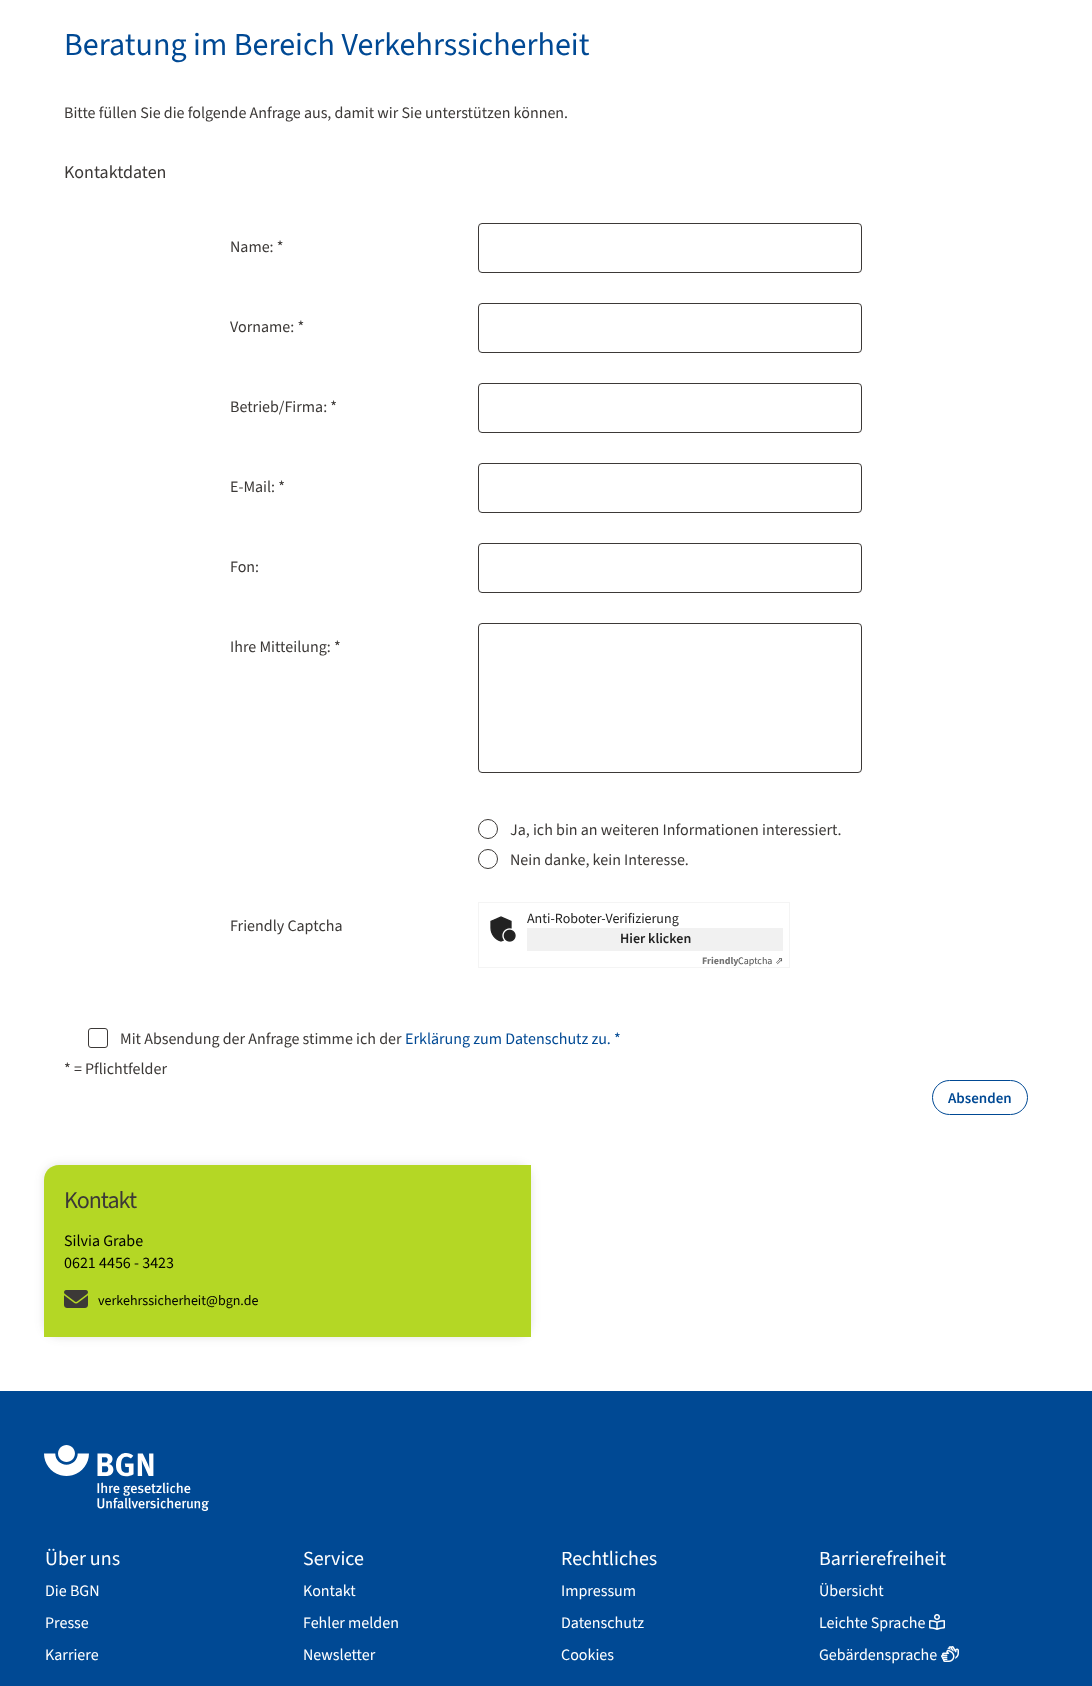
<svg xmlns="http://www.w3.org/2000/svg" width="1092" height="1686">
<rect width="100%" height="100%" fill="#fff"/>
<text x="64" y="55" style="font-family:'Source Sans 3';font-size:32px;fill:#004994">Beratung im Bereich Verkehrssicherheit</text>
<text x="64" y="118" style="font-family:'Source Sans 3';font-size:16px;fill:#3c3937">Bitte füllen Sie die folgende Anfrage aus, damit wir Sie unterstützen können.</text>
<text x="64" y="178" style="font-family:'Source Sans 3';font-size:18px;fill:#3c3937">Kontaktdaten</text>
<text x="230" y="252" style="font-family:'Source Sans 3';font-size:16px;fill:#3c3937">Name: *</text>
<rect x="478.5" y="223.5" width="383" height="49" rx="3.5" fill="none" stroke="#3c3937"/>
<text x="230" y="332" style="font-family:'Source Sans 3';font-size:16px;fill:#3c3937">Vorname: *</text>
<rect x="478.5" y="303.5" width="383" height="49" rx="3.5" fill="none" stroke="#3c3937"/>
<text x="230" y="412" style="font-family:'Source Sans 3';font-size:16px;fill:#3c3937">Betrieb/Firma: *</text>
<rect x="478.5" y="383.5" width="383" height="49" rx="3.5" fill="none" stroke="#3c3937"/>
<text x="230" y="492" style="font-family:'Source Sans 3';font-size:16px;fill:#3c3937">E-Mail: *</text>
<rect x="478.5" y="463.5" width="383" height="49" rx="3.5" fill="none" stroke="#3c3937"/>
<text x="230" y="572" style="font-family:'Source Sans 3';font-size:16px;fill:#3c3937">Fon:</text>
<rect x="478.5" y="543.5" width="383" height="49" rx="3.5" fill="none" stroke="#3c3937"/>
<text x="230" y="652" style="font-family:'Source Sans 3';font-size:16px;fill:#3c3937">Ihre Mitteilung: *</text>
<rect x="478.5" y="623.5" width="383" height="149" rx="3.5" fill="none" stroke="#3c3937"/>
<circle cx="488" cy="829" r="9.5" fill="none" stroke="#3c3937"/>
<text x="510" y="835" style="font-family:'Source Sans 3';font-size:16px;fill:#3c3937">Ja, ich bin an weiteren Informationen interessiert.</text>
<circle cx="488" cy="859" r="9.5" fill="none" stroke="#3c3937"/>
<text x="510" y="865" style="font-family:'Source Sans 3';font-size:16px;fill:#3c3937">Nein danke, kein Interesse.</text>
<text x="230" y="931" style="font-family:'Source Sans 3';font-size:16px;fill:#3c3937">Friendly Captcha</text>
<rect x="478.5" y="902.5" width="311" height="65" fill="none" stroke="#f4f4f4"/>
<image x="490" y="916" width="26" height="26" href="media/1.png"/>
<text x="527" y="923" style="font-family:'Source Sans 3';font-size:14px;fill:#222">Anti-Roboter-Verifizierung</text>
<rect x="527" y="928" width="256" height="23" fill="#f1f1f1"/>
<text x="620" y="943" style="font-family:'Source Sans 3';font-size:14px;font-weight:600;fill:#222">Hier klicken</text>
<text x="738" y="964" style="font-family:'Source Sans 3';font-size:10px;fill:#4e4e4e">Captcha</text>
<text x="702" y="964" style="font-family:'Source Sans 3';font-size:10px;font-weight:bold;fill:#727272">Friendly</text>
<text x="775" y="964" style="font-family:DejaVu Sans;font-size:10px;fill:#4e4e4e">⇗</text>
<rect x="88.5" y="1028.5" width="19" height="19" rx="2.5" fill="none" stroke="#3c3937"/>
<text x="120" y="1044" style="font-family:'Source Sans 3';font-size:16px;fill:#3c3937">Mit Absendung der Anfrage stimme ich der</text>
<text x="405" y="1044" style="font-family:'Source Sans 3';font-size:16px;fill:#004994">Erklärung zum Datenschutz zu. *</text>
<text x="64" y="1074" style="font-family:'Source Sans 3';font-size:16px;fill:#3c3937">* = Pflichtfelder</text>
<rect x="932.5" y="1080.5" width="95" height="34" rx="17" fill="none" stroke="#004994"/>
<text x="948" y="1103" style="font-family:'Source Sans 3';font-size:15px;font-weight:600;fill:#004994">Absenden</text>
<rect x="44" y="1165" width="487" height="172" rx="15" fill="#36363626" filter="blur(5px)"/>
<path d="M59 1165h472v172h-487v-157c0-8.5 6.5-15 15-15z" fill="#b4d725"/>
<text x="64" y="1208" style="font-family:'Source Sans 3';font-size:24px;letter-spacing:-1px;fill:#3c3937">Kontakt</text>
<text x="64" y="1246" style="font-family:'Source Sans 3';font-size:16px;fill:#000">Silvia Grabe</text>
<text x="64" y="1268" style="font-family:'Source Sans 3';font-size:16px;fill:#000">0621 4456 - 3423</text>
<image x="64" y="1290" width="24" height="18" href="media/2.png"/>
<text x="98" y="1305" style="font-family:'Source Sans 3';font-size:14px;fill:#000">verkehrssicherheit@bgn.de</text>
<rect y="1391" width="1092" height="295" fill="#004994"/>
<image x="44" y="1445" width="165" height="66" href="media/3.png"/>
<text x="45" y="1565" style="font-family:'Source Sans 3';font-size:20px;fill:#fff">Über uns</text>
<text x="45" y="1596" style="font-family:'Source Sans 3';font-size:16px;fill:#fff">Die BGN</text>
<text x="45" y="1628" style="font-family:'Source Sans 3';font-size:16px;fill:#fff">Presse</text>
<text x="45" y="1660" style="font-family:'Source Sans 3';font-size:16px;fill:#fff">Karriere</text>
<text x="303" y="1565" style="font-family:'Source Sans 3';font-size:20px;fill:#fff">Service</text>
<text x="303" y="1596" style="font-family:'Source Sans 3';font-size:16px;fill:#fff">Kontakt</text>
<text x="303" y="1628" style="font-family:'Source Sans 3';font-size:16px;fill:#fff">Fehler melden</text>
<text x="303" y="1660" style="font-family:'Source Sans 3';font-size:16px;fill:#fff">Newsletter</text>
<text x="561" y="1565" style="font-family:'Source Sans 3';font-size:20px;fill:#fff">Rechtliches</text>
<text x="561" y="1596" style="font-family:'Source Sans 3';font-size:16px;fill:#fff">Impressum</text>
<text x="561" y="1628" style="font-family:'Source Sans 3';font-size:16px;fill:#fff">Datenschutz</text>
<text x="561" y="1660" style="font-family:'Source Sans 3';font-size:16px;fill:#fff">Cookies</text>
<text x="819" y="1565" style="font-family:'Source Sans 3';font-size:20px;fill:#fff">Barrierefreiheit</text>
<text x="819" y="1596" style="font-family:'Source Sans 3';font-size:16px;fill:#fff">Übersicht</text>
<text x="819" y="1628" style="font-family:'Source Sans 3';font-size:16px;fill:#fff">Leichte Sprache</text>
<image x="929" y="1614" width="16" height="16" href="media/4.png"/>
<text x="819" y="1660" style="font-family:'Source Sans 3';font-size:16px;fill:#fff">Gebärdensprache</text>
<image x="941" y="1646" width="18" height="16" href="media/5.png"/>
</svg>
